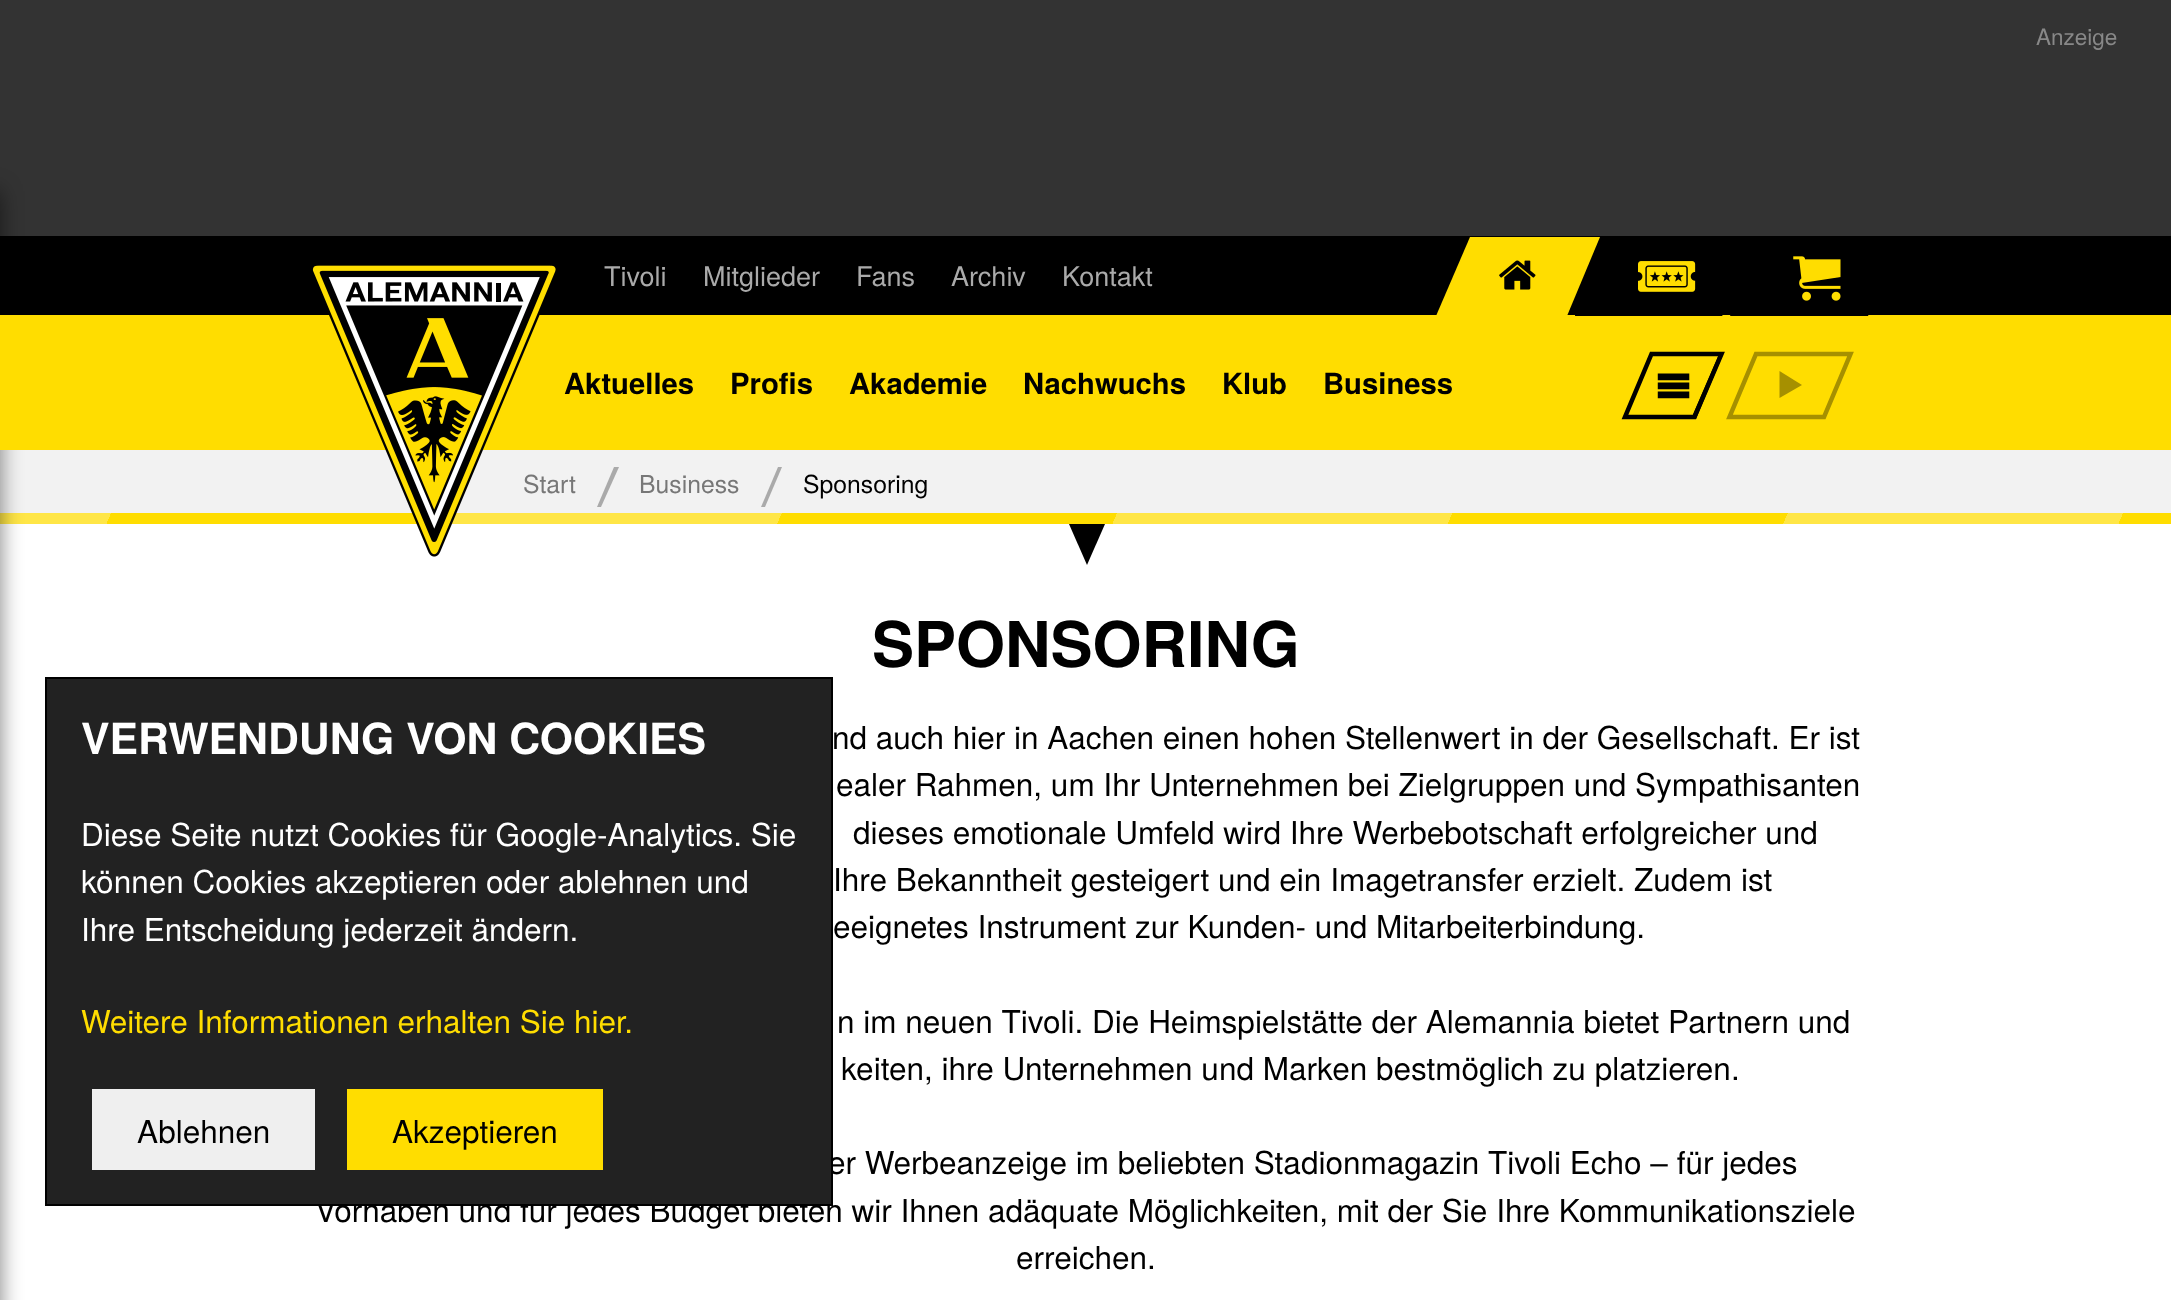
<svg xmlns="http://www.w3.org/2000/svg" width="2171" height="1300">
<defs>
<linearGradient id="g1" gradientUnits="userSpaceOnUse" x1="-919" y1="-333" x2="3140" y2="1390"><stop offset="0" stop-color="#fd0"/><stop offset="0.07" stop-color="#fd0"/><stop offset="0.07" stop-color="#ffe647"/><stop offset="0.14" stop-color="#ffe647"/><stop offset="0.14" stop-color="#fd0"/><stop offset="0.21" stop-color="#fd0"/><stop offset="0.21" stop-color="#ffe647"/><stop offset="0.29" stop-color="#ffe647"/><stop offset="0.29" stop-color="#fd0"/><stop offset="0.36" stop-color="#fd0"/><stop offset="0.36" stop-color="#ffe647"/><stop offset="0.43" stop-color="#ffe647"/><stop offset="0.43" stop-color="#fd0"/><stop offset="0.5" stop-color="#fd0"/><stop offset="0.5" stop-color="#ffe647"/><stop offset="0.57" stop-color="#ffe647"/><stop offset="0.57" stop-color="#fd0"/><stop offset="0.64" stop-color="#fd0"/><stop offset="0.64" stop-color="#ffe647"/><stop offset="0.71" stop-color="#ffe647"/><stop offset="0.71" stop-color="#fd0"/><stop offset="0.79" stop-color="#fd0"/><stop offset="0.79" stop-color="#ffe647"/><stop offset="0.86" stop-color="#ffe647"/><stop offset="0.86" stop-color="#fd0"/><stop offset="0.93" stop-color="#fd0"/><stop offset="0.93" stop-color="#ffe647"/><stop offset="1" stop-color="#ffe647"/></linearGradient>
</defs>
<rect width="100%" height="100%" fill="#333"/>
<text x="2036" y="45" style="font-family:TeX Gyre Heros;font-size:22.5px;fill:#888">Anzeige</text>
<rect y="524" width="2171" height="776" fill="#fff"/>
<rect y="450" width="2171" height="63" fill="#f2f2f2"/>
<rect y="513" width="2171" height="11" fill="url(#g1)"/>
<rect x="-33" y="191" width="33" height="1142" fill="#00000080" filter="blur(11px)"/>
<rect y="236" width="2171" height="79" fill="#000"/>
<rect y="315" width="2171" height="135" fill="#fd0"/>
<text x="523" y="493" style="font-family:TeX Gyre Heros;font-size:24.75px;fill:#777">Start</text>
<image x="312" y="265" width="244" height="292" href="media/1.png"/>
<text x="604" y="286" style="font-family:TeX Gyre Heros;font-size:27px;fill:#aaa">Tivoli</text>
<text x="703" y="286" style="font-family:TeX Gyre Heros;font-size:27px;fill:#aaa">Mitglieder</text>
<text x="856" y="286" style="font-family:TeX Gyre Heros;font-size:27px;fill:#aaa">Fans</text>
<text x="951" y="286" style="font-family:TeX Gyre Heros;font-size:27px;fill:#aaa">Archiv</text>
<text x="1062" y="286" style="font-family:TeX Gyre Heros;font-size:27px;fill:#aaa">Kontakt</text>
<path d="M1470 237h130l-33 79h-131z" fill="#fd0"/>
<image x="1499" y="260" width="37" height="30" href="media/2.png"/>
<path d="M1609 237h146l-33 79h-147z" fill="#000"/>
<path d="M1754 239l-32 77h-147l34-79h146z" fill="#000"/>
<image x="1638" y="261" width="58" height="31" href="media/3.png"/>
<path d="M1898 245l-30 71h-138l34-79h137z" fill="#000"/>
<image x="1793" y="256" width="48" height="45" href="media/4.png"/>
<text x="564" y="394" style="font-family:TeX Gyre Heros;font-size:29.25px;font-weight:bold;fill:#000">Aktuelles</text>
<text x="730" y="394" style="font-family:TeX Gyre Heros;font-size:29.25px;font-weight:bold;fill:#000">Profis</text>
<text x="849" y="394" style="font-family:TeX Gyre Heros;font-size:29.25px;font-weight:bold;fill:#000">Akademie</text>
<text x="1023" y="394" style="font-family:TeX Gyre Heros;font-size:29.25px;font-weight:bold;fill:#000">Nachwuchs</text>
<text x="1222" y="394" style="font-family:TeX Gyre Heros;font-size:29.25px;font-weight:bold;fill:#000">Klub</text>
<text x="1323" y="394" style="font-family:TeX Gyre Heros;font-size:29.25px;font-weight:bold;fill:#000">Business</text>
<path d="M1720 352h4l-28 67h-5z" fill="#000"/>
<path d="M1651.5 354h70l-27 63h-69.5z" fill="none" stroke="#000" stroke-width="4.5"/>
<image x="1657" y="373" width="33" height="26" href="media/5.png"/>
<path d="M1756 354h94.5l-26.5 63h-94.5z" fill="none" stroke="#a69000" stroke-width="4.5"/>
<path d="M1779.5 371l22.5 14l-22.5 13z" fill="#a69000"/>
<path d="M614 467h5l-18 40h-4z" fill="#aaa"/>
<text x="639" y="493" style="font-family:TeX Gyre Heros;font-size:24.75px;fill:#777">Business</text>
<path d="M778 467h4l-17 40h-4z" fill="#aaa"/>
<text x="803" y="493" style="font-family:TeX Gyre Heros;font-size:24.75px;fill:#000">Sponsoring</text>
<path d="M1069 524h36l-18 41z" fill="#000"/>
<text x="872" y="667" style="font-family:TeX Gyre Heros;font-size:63px;font-weight:bold;fill:#000">SPONSORING</text>
<text x="832" y="749" style="font-family:TeX Gyre Heros;font-size:31.5px;fill:#000">nd auch hier in Aachen einen hohen Stellenwert in der Gesellschaft. Er ist</text>
<text x="836" y="796" style="font-family:TeX Gyre Heros;font-size:31.5px;fill:#000">ealer Rahmen, um Ihr Unternehmen bei Zielgruppen und Sympathisanten</text>
<text x="853" y="844" style="font-family:TeX Gyre Heros;font-size:31.5px;fill:#000">dieses emotionale Umfeld wird Ihre Werbebotschaft erfolgreicher und</text>
<text x="833" y="891" style="font-family:TeX Gyre Heros;font-size:31.5px;fill:#000">Ihre Bekanntheit gesteigert und ein Imagetransfer erzielt. Zudem ist</text>
<text x="833" y="938" style="font-family:TeX Gyre Heros;font-size:31.5px;fill:#000">eeignetes Instrument zur Kunden- und Mitarbeiterbindung.</text>
<text x="837" y="1033" style="font-family:TeX Gyre Heros;font-size:31.5px;fill:#000">n im neuen Tivoli. Die Heimspielstätte der Alemannia bietet Partnern und</text>
<text x="841" y="1080" style="font-family:TeX Gyre Heros;font-size:31.5px;fill:#000">keiten, ihre Unternehmen und Marken bestmöglich zu platzieren.</text>
<text x="828" y="1174" style="font-family:TeX Gyre Heros;font-size:31.5px;fill:#000">er Werbeanzeige im beliebten Stadionmagazin Tivoli Echo – für jedes</text>
<text x="315" y="1222" style="font-family:TeX Gyre Heros;font-size:31.5px;fill:#000">Vorhaben und für jedes Budget bieten wir Ihnen adäquate Möglichkeiten, mit der Sie Ihre Kommunikationsziele</text>
<text x="1016" y="1269" style="font-family:TeX Gyre Heros;font-size:31.5px;fill:#000">erreichen.</text>
<rect x="46" y="678" width="786" height="527" fill="#222" stroke="#000" stroke-width="2"/>
<text x="81" y="754" style="font-family:TeX Gyre Heros;font-size:42.75px;font-weight:bold;fill:#fff">VERWENDUNG VON COOKIES</text>
<text x="81" y="846" style="font-family:TeX Gyre Heros;font-size:31.5px;fill:#fff">Diese Seite nutzt Cookies für Google-Analytics. Sie</text>
<text x="81" y="893" style="font-family:TeX Gyre Heros;font-size:31.5px;fill:#fff">können Cookies akzeptieren oder ablehnen und</text>
<text x="81" y="941" style="font-family:TeX Gyre Heros;font-size:31.5px;fill:#fff">Ihre Entscheidung jederzeit ändern.</text>
<text x="81" y="1033" style="font-family:TeX Gyre Heros;font-size:31.5px;fill:#fd0">Weitere Informationen erhalten Sie hier.</text>
<rect x="92" y="1089" width="223" height="81" fill="#efefef"/>
<text x="137" y="1143" style="font-family:TeX Gyre Heros;font-size:31.5px;fill:#000">Ablehnen</text>
<rect x="347" y="1089" width="256" height="81" fill="#fd0"/>
<text x="392" y="1143" style="font-family:TeX Gyre Heros;font-size:31.5px;fill:#000">Akzeptieren</text>
</svg>
